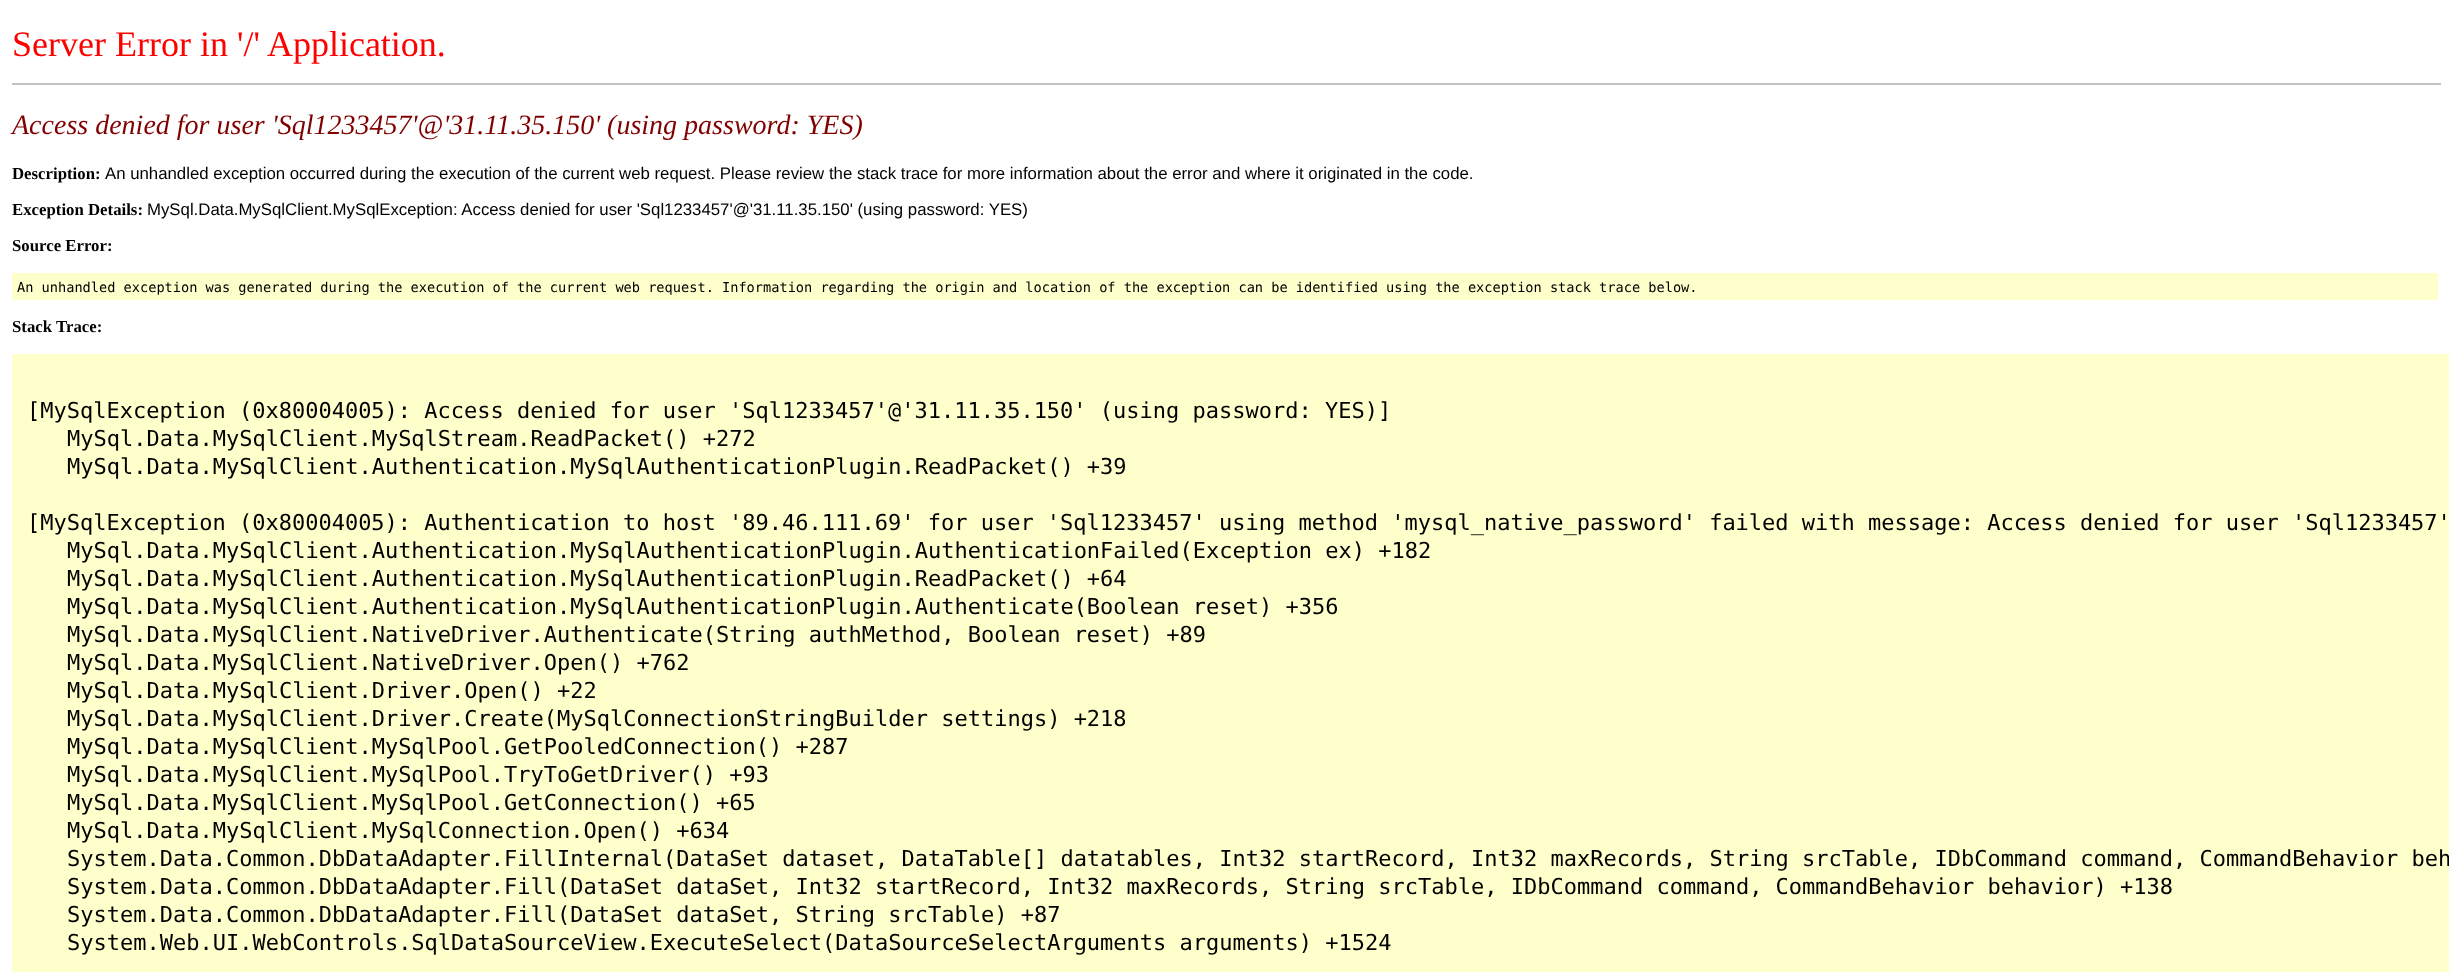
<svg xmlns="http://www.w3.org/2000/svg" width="2449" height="972">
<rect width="100%" height="100%" fill="#fff"/>
<text x="12" y="56" style="font-family:Liberation Serif;font-size:36px;fill:#f00">Server Error in '/' Application.</text>
<rect x="12" y="83" width="2429" height="2" fill="#c0c0c0"/>
<text x="12" y="134" style="font-family:Liberation Serif;font-size:28px;font-style:italic;fill:#800000">Access denied for user 'Sql1233457'@'31.11.35.150' (using password: YES)</text>
<text x="12" y="179" style="font-family:Liberation Serif;font-size:16.8px;font-weight:bold;fill:#000">Description:</text>
<text x="105" y="179" style="font-family:Liberation Sans;font-size:16.8px;fill:#000">An unhandled exception occurred during the execution of the current web request. Please review the stack trace for more information about the error and where it originated in the code.</text>
<text x="12" y="215" style="font-family:Liberation Serif;font-size:16.8px;font-weight:bold;fill:#000">Exception Details:</text>
<text x="147" y="215" style="font-family:Liberation Sans;font-size:16.8px;fill:#000">MySql.Data.MySqlClient.MySqlException: Access denied for user 'Sql1233457'@'31.11.35.150' (using password: YES)</text>
<text x="12" y="251" style="font-family:Liberation Serif;font-size:16.8px;font-weight:bold;fill:#000">Source Error:</text>
<rect x="12" y="273" width="2426" height="27" fill="#ffc"/>
<text x="17" y="292" word-spacing="-0.1" style="font-family:DejaVu Sans Mono;font-size:13.65px;fill:#000">An unhandled exception was generated during the execution of the current web request. Information regarding the origin and location of the exception can be identified using the exception stack trace below.</text>
<text x="12" y="332" style="font-family:Liberation Serif;font-size:16.8px;font-weight:bold;fill:#000">Stack Trace:</text>
<rect x="12" y="354" width="2437" height="618" fill="#ffc"/>
<text x="27" y="418" style="font-family:DejaVu Sans Mono;font-size:22px;fill:#000">[MySqlException (0x80004005): Access denied for user 'Sql1233457'@'31.11.35.150' (using password: YES)]</text>
<text x="67" y="446" word-spacing="-0.1" style="font-family:DejaVu Sans Mono;font-size:22px;fill:#000">MySql.Data.MySqlClient.MySqlStream.ReadPacket() +272</text>
<text x="67" y="474" style="font-family:DejaVu Sans Mono;font-size:22px;fill:#000">MySql.Data.MySqlClient.Authentication.MySqlAuthenticationPlugin.ReadPacket() +39</text>
<text x="27" y="530" style="font-family:DejaVu Sans Mono;font-size:22px;fill:#000">[MySqlException (0x80004005): Authentication to host '89.46.111.69' for user 'Sql1233457' using method 'mysql_native_password' failed with message: Access denied for user 'Sql1233457'</text>
<text x="67" y="558" style="font-family:DejaVu Sans Mono;font-size:22px;fill:#000">MySql.Data.MySqlClient.Authentication.MySqlAuthenticationPlugin.AuthenticationFailed(Exception ex) +182</text>
<text x="67" y="586" style="font-family:DejaVu Sans Mono;font-size:22px;fill:#000">MySql.Data.MySqlClient.Authentication.MySqlAuthenticationPlugin.ReadPacket() +64</text>
<text x="67" y="614" style="font-family:DejaVu Sans Mono;font-size:22px;fill:#000">MySql.Data.MySqlClient.Authentication.MySqlAuthenticationPlugin.Authenticate(Boolean reset) +356</text>
<text x="67" y="642" style="font-family:DejaVu Sans Mono;font-size:22px;fill:#000">MySql.Data.MySqlClient.NativeDriver.Authenticate(String authMethod, Boolean reset) +89</text>
<text x="67" y="670" style="font-family:DejaVu Sans Mono;font-size:22px;fill:#000">MySql.Data.MySqlClient.NativeDriver.Open() +762</text>
<text x="67" y="698" style="font-family:DejaVu Sans Mono;font-size:22px;fill:#000">MySql.Data.MySqlClient.Driver.Open() +22</text>
<text x="67" y="726" style="font-family:DejaVu Sans Mono;font-size:22px;fill:#000">MySql.Data.MySqlClient.Driver.Create(MySqlConnectionStringBuilder settings) +218</text>
<text x="67" y="754" style="font-family:DejaVu Sans Mono;font-size:22px;fill:#000">MySql.Data.MySqlClient.MySqlPool.GetPooledConnection() +287</text>
<text x="67" y="782" word-spacing="-0.1" style="font-family:DejaVu Sans Mono;font-size:22px;fill:#000">MySql.Data.MySqlClient.MySqlPool.TryToGetDriver() +93</text>
<text x="67" y="810" word-spacing="-0.1" style="font-family:DejaVu Sans Mono;font-size:22px;fill:#000">MySql.Data.MySqlClient.MySqlPool.GetConnection() +65</text>
<text x="67" y="838" style="font-family:DejaVu Sans Mono;font-size:22px;fill:#000">MySql.Data.MySqlClient.MySqlConnection.Open() +634</text>
<text x="67" y="866" style="font-family:DejaVu Sans Mono;font-size:22px;fill:#000">System.Data.Common.DbDataAdapter.FillInternal(DataSet dataset, DataTable[] datatables, Int32 startRecord, Int32 maxRecords, String srcTable, IDbCommand command, CommandBehavior beh</text>
<text x="67" y="894" style="font-family:DejaVu Sans Mono;font-size:22px;fill:#000">System.Data.Common.DbDataAdapter.Fill(DataSet dataSet, Int32 startRecord, Int32 maxRecords, String srcTable, IDbCommand command, CommandBehavior behavior) +138</text>
<text x="67" y="922" style="font-family:DejaVu Sans Mono;font-size:22px;fill:#000">System.Data.Common.DbDataAdapter.Fill(DataSet dataSet, String srcTable) +87</text>
<text x="67" y="950" style="font-family:DejaVu Sans Mono;font-size:22px;fill:#000">System.Web.UI.WebControls.SqlDataSourceView.ExecuteSelect(DataSourceSelectArguments arguments) +1524</text>
</svg>
